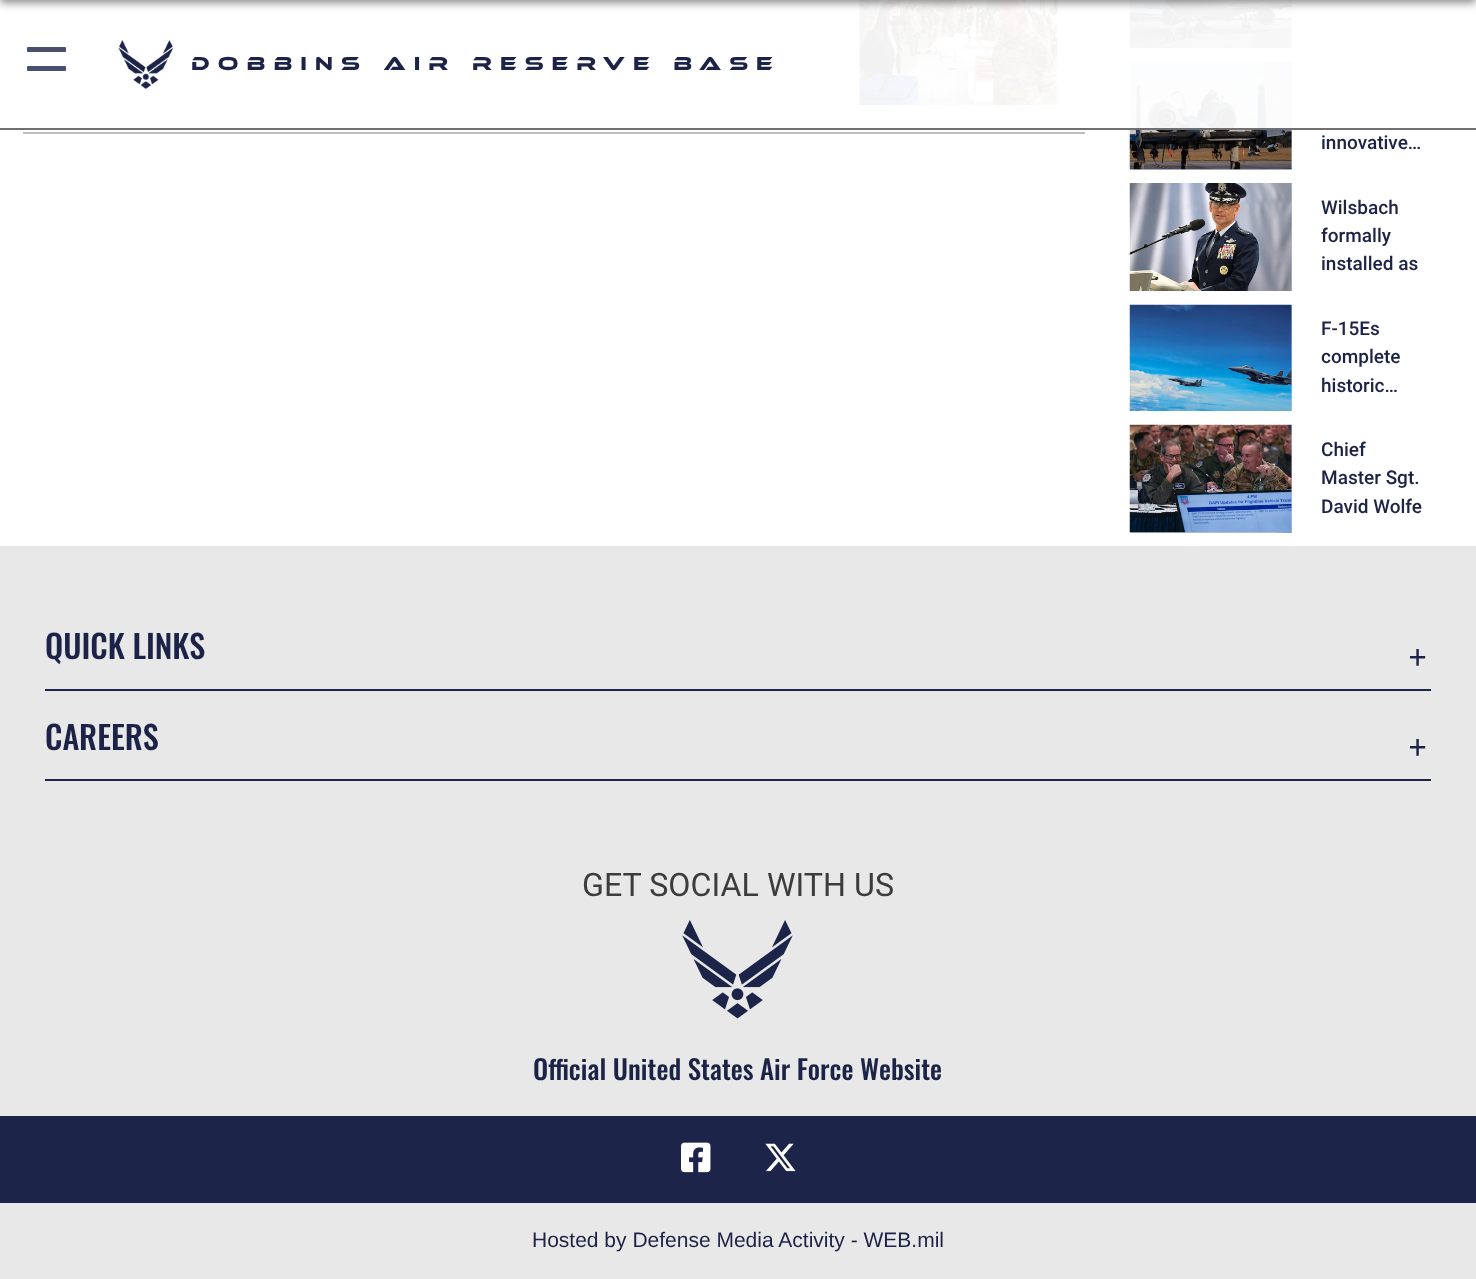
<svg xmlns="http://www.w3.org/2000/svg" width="1476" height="1279">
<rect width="100%" height="100%" fill="#fff"/>
<image x="859" y="0" width="199" height="105" href="media/2.png"/>
<rect x="1291" width="1" height="48" fill="#b5c7e3"/>
<image x="1129" y="0" width="163" height="48" href="media/3.png"/>
<rect x="1130" y="62" width="162" height="108" fill="#b5c7e3"/>
<image x="1129" y="61" width="163" height="109" href="media/4.png"/>
<rect x="859" width="433" height="128" fill="#fffffff2"/>
<rect y="-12" width="1476" height="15" fill="#00000073" filter="blur(4px)"/>
<rect y="128" width="1476" height="2" fill="#707070"/>
<rect x="27" y="47" width="39" height="5" rx="1" fill="#49506d"/>
<rect x="27" y="66" width="39" height="5" rx="1" fill="#49506d"/>
<image x="118" y="40" width="56" height="50" href="media/1.png"/>
<text x="191" y="70" style="font-family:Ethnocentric;font-size:19.5px;letter-spacing:8.1px;fill:#1c2347">Dobbins Air Reserve Base</text>
<rect x="23" y="132" width="1062" height="2" fill="#c1bdbd"/>
<text x="1321" y="149" style="font-family:Roboto;font-size:19px;font-weight:500;fill:#1c2347">innovative…</text>
<rect x="1291" y="183" width="1" height="108" fill="#b5c7e3"/>
<image x="1129" y="183" width="163" height="108" href="media/5.png"/>
<text x="1321" y="214" style="font-family:Roboto;font-size:19px;font-weight:500;fill:#1c2347">Wilsbach</text>
<text x="1321" y="242" style="font-family:Roboto;font-size:19px;font-weight:500;fill:#1c2347">formally</text>
<text x="1321" y="270" style="font-family:Roboto;font-size:19px;font-weight:500;fill:#1c2347">installed as</text>
<rect x="1291" y="305" width="1" height="106" fill="#b5c7e3"/>
<image x="1129" y="304" width="163" height="107" href="media/6.png"/>
<text x="1321" y="335" style="font-family:Roboto;font-size:19px;font-weight:500;fill:#1c2347">F-15Es</text>
<text x="1321" y="363" style="font-family:Roboto;font-size:19px;font-weight:500;fill:#1c2347">complete</text>
<text x="1321" y="392" style="font-family:Roboto;font-size:19px;font-weight:500;fill:#1c2347">historic…</text>
<rect x="1130" y="425" width="162" height="108" fill="#b5c7e3"/>
<image x="1129" y="424" width="163" height="109" href="media/7.png"/>
<text x="1321" y="456" style="font-family:Roboto;font-size:19px;font-weight:500;fill:#1c2347">Chief</text>
<text x="1321" y="484" style="font-family:Roboto;font-size:19px;font-weight:500;fill:#1c2347">Master Sgt.</text>
<text x="1321" y="513" style="font-family:Roboto;font-size:19px;font-weight:500;fill:#1c2347">David Wolfe</text>
<rect y="546" width="1476" height="733" fill="#e8e8e8"/>
<rect x="45" y="689" width="1386" height="2" fill="#1c2449"/>
<text x="45" y="659" style="font-family:Oswald;font-size:32.25px;font-weight:500;fill:#1c2347">QUICK LINKS</text>
<text x="1409" y="676" style="font-family:Oswald;font-size:45px;font-weight:300;fill:#1c2347">+</text>
<rect x="45" y="779" width="1386" height="2" fill="#1c2449"/>
<text x="45" y="750" style="font-family:Oswald;font-size:32.25px;font-weight:500;fill:#1c2347">CAREERS</text>
<text x="1409" y="766" style="font-family:Oswald;font-size:45px;font-weight:300;fill:#1c2347">+</text>
<text x="582" y="896" style="font-family:Roboto;font-size:32.25px;fill:#3d3c3c">GET SOCIAL WITH US</text>
<image x="682" y="920" width="111" height="99" href="media/8.png"/>
<text x="533" y="1080" style="font-family:Oswald;font-size:26.9px;font-weight:500;fill:#1c2347">Official United States Air Force Website</text>
<rect y="1116" width="1476" height="87" fill="#1c2449"/>
<image x="681" y="1142" width="30" height="31" href="media/9.png"/>
<image x="765" y="1143" width="31" height="29" href="media/10.png"/>
<text x="532" y="1247" style="font-family:Liberation Sans;font-size:21px;fill:#1c2347">Hosted by Defense Media Activity - WEB.mil</text>
</svg>
